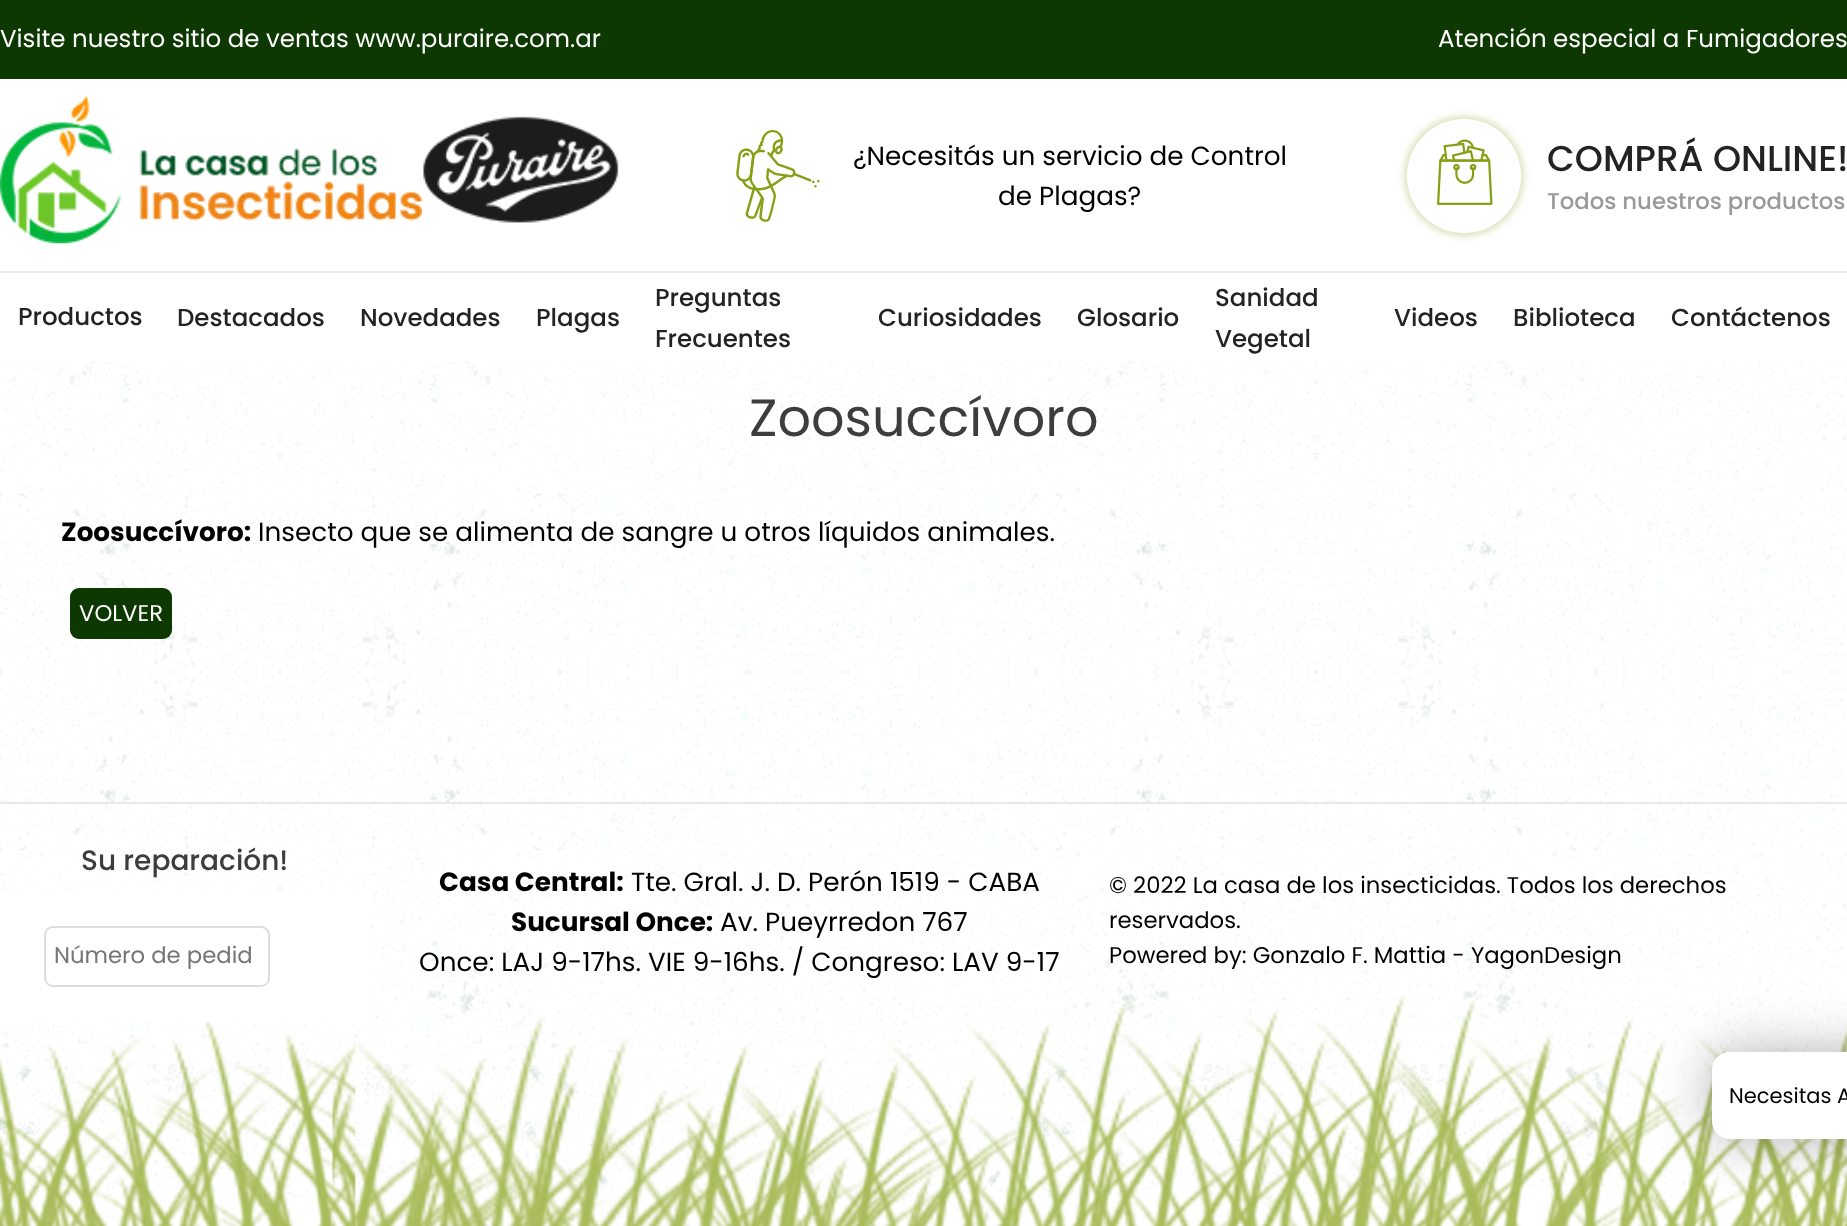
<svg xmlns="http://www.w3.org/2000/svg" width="1847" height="1226">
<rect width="100%" height="100%" fill="#fff"/>
<image x="0" y="361" width="1847" height="865" href="media/1.png"/>
<rect width="1847" height="79" fill="#0e3801"/>
<text x="0" y="47" style="font-family:Poppins;font-size:24.5px;fill:#fff">Visite nuestro sitio de ventas www.puraire.com.ar</text>
<text x="1438" y="47" style="font-family:Poppins;font-size:24.5px;fill:#fff">Atención especial a Fumigadores</text>
<image x="0" y="96" width="422" height="148" href="media/2.png"/>
<image x="423" y="116" width="196" height="107" href="media/3.png"/>
<image x="736" y="130" width="84" height="92" href="media/4.png"/>
<text x="853" y="165" style="font-family:Poppins;font-size:26.25px;fill:#000">¿Necesitás un servicio de Control</text>
<text x="998" y="205" style="font-family:Poppins;font-size:26.25px;fill:#000">de Plagas?</text>
<rect x="1404" y="116" width="120" height="120" rx="60" fill="#84a0144d" filter="blur(3.5px)"/>
<circle cx="1464" cy="176" r="57" fill="#fff"/>
<image x="1437" y="139" width="56" height="66" href="media/5.png"/>
<text x="1547" y="171" style="font-family:Poppins;font-size:35.9px;font-weight:500;fill:#232323">COMPRÁ ONLINE!</text>
<text x="1547" y="209" style="font-family:Poppins;font-size:22.75px;font-weight:500;fill:#999">Todos nuestros productos</text>
<rect y="271" width="1847" height="2" fill="#e9e9e9"/>
<text x="18" y="325" style="font-family:Poppins;font-size:24.5px;font-weight:500;fill:#232323">Productos</text>
<text x="177" y="326" style="font-family:Poppins;font-size:24.5px;font-weight:500;fill:#232323">Destacados</text>
<text x="360" y="326" style="font-family:Poppins;font-size:24.5px;font-weight:500;fill:#232323">Novedades</text>
<text x="536" y="326" style="font-family:Poppins;font-size:24.5px;font-weight:500;fill:#232323">Plagas</text>
<text x="655" y="306" style="font-family:Poppins;font-size:24.5px;font-weight:500;fill:#232323">Preguntas</text>
<text x="655" y="347" style="font-family:Poppins;font-size:24.5px;font-weight:500;fill:#232323">Frecuentes</text>
<text x="878" y="326" style="font-family:Poppins;font-size:24.5px;font-weight:500;fill:#232323">Curiosidades</text>
<text x="1077" y="326" style="font-family:Poppins;font-size:24.5px;font-weight:500;fill:#232323">Glosario</text>
<text x="1215" y="306" style="font-family:Poppins;font-size:24.5px;font-weight:500;fill:#232323">Sanidad</text>
<text x="1215" y="347" style="font-family:Poppins;font-size:24.5px;font-weight:500;fill:#232323">Vegetal</text>
<text x="1394" y="326" style="font-family:Poppins;font-size:24.5px;font-weight:500;fill:#232323">Videos</text>
<text x="1513" y="326" style="font-family:Poppins;font-size:24.5px;font-weight:500;fill:#232323">Biblioteca</text>
<text x="1671" y="326" style="font-family:Poppins;font-size:24.5px;font-weight:500;fill:#232323">Contáctenos</text>
<text x="749" y="436" style="font-family:Poppins;font-size:52.5px;fill:#3e3d3d">Zoosuccívoro</text>
<text x="61" y="541" style="font-family:Poppins;font-size:26.25px;font-weight:bold;fill:#000">Zoosuccívoro:</text>
<text x="258" y="541" style="font-family:Poppins;font-size:26.25px;fill:#000">Insecto que se alimenta de sangre u otros líquidos animales.</text>
<rect x="70" y="588" width="102" height="51" rx="9" fill="#0e3801"/>
<text x="79" y="621" style="font-family:Poppins;font-size:22.75px;fill:#fff">VOLVER</text>
<rect y="802" width="1847" height="2" fill="#e8e8e8"/>
<text x="81" y="870" style="font-family:Poppins;font-size:28px;font-weight:500;fill:#3e3d3d">Su reparación!</text>
<rect y="891" width="369" height="131" fill="#fff"/>
<rect x="45" y="927" width="224" height="59" rx="8" fill="none" stroke="#ddd" stroke-width="2"/>
<text x="54" y="963" style="font-family:Poppins;font-size:22.75px;fill:#757575">Número de pedid</text>
<text x="439" y="891" style="font-family:Poppins;font-size:26.25px;font-weight:bold;fill:#000">Casa Central:</text>
<text x="631" y="891" style="font-family:Poppins;font-size:26.25px;fill:#000">Tte. Gral. J. D. Perón 1519 - CABA</text>
<text x="511" y="931" style="font-family:Poppins;font-size:26.25px;font-weight:bold;fill:#000">Sucursal Once:</text>
<text x="720" y="931" style="font-family:Poppins;font-size:26.25px;fill:#000">Av. Pueyrredon 767</text>
<text x="419" y="971" style="font-family:Poppins;font-size:26.25px;fill:#000">Once: LAJ 9-17hs. VIE 9-16hs. / Congreso: LAV 9-17</text>
<text x="1109" y="893" style="font-family:Poppins;font-size:22.75px;fill:#000">© 2022 La casa de los insecticidas. Todos los derechos</text>
<text x="1109" y="928" style="font-family:Poppins;font-size:22.75px;fill:#000">reservados.</text>
<text x="1109" y="963" style="font-family:Poppins;font-size:22.75px;fill:#000">Powered by: Gonzalo F. Mattia - YagonDesign</text>
<rect x="1712" y="1052" width="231" height="87" rx="18" fill="#0000004d" filter="blur(26px)"/>
<rect x="1712" y="1052" width="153" height="87" rx="18" fill="#fff"/>
<text x="1729" y="1103" style="font-family:Poppins;font-size:21px;fill:#000">Necesitas A</text>
</svg>
